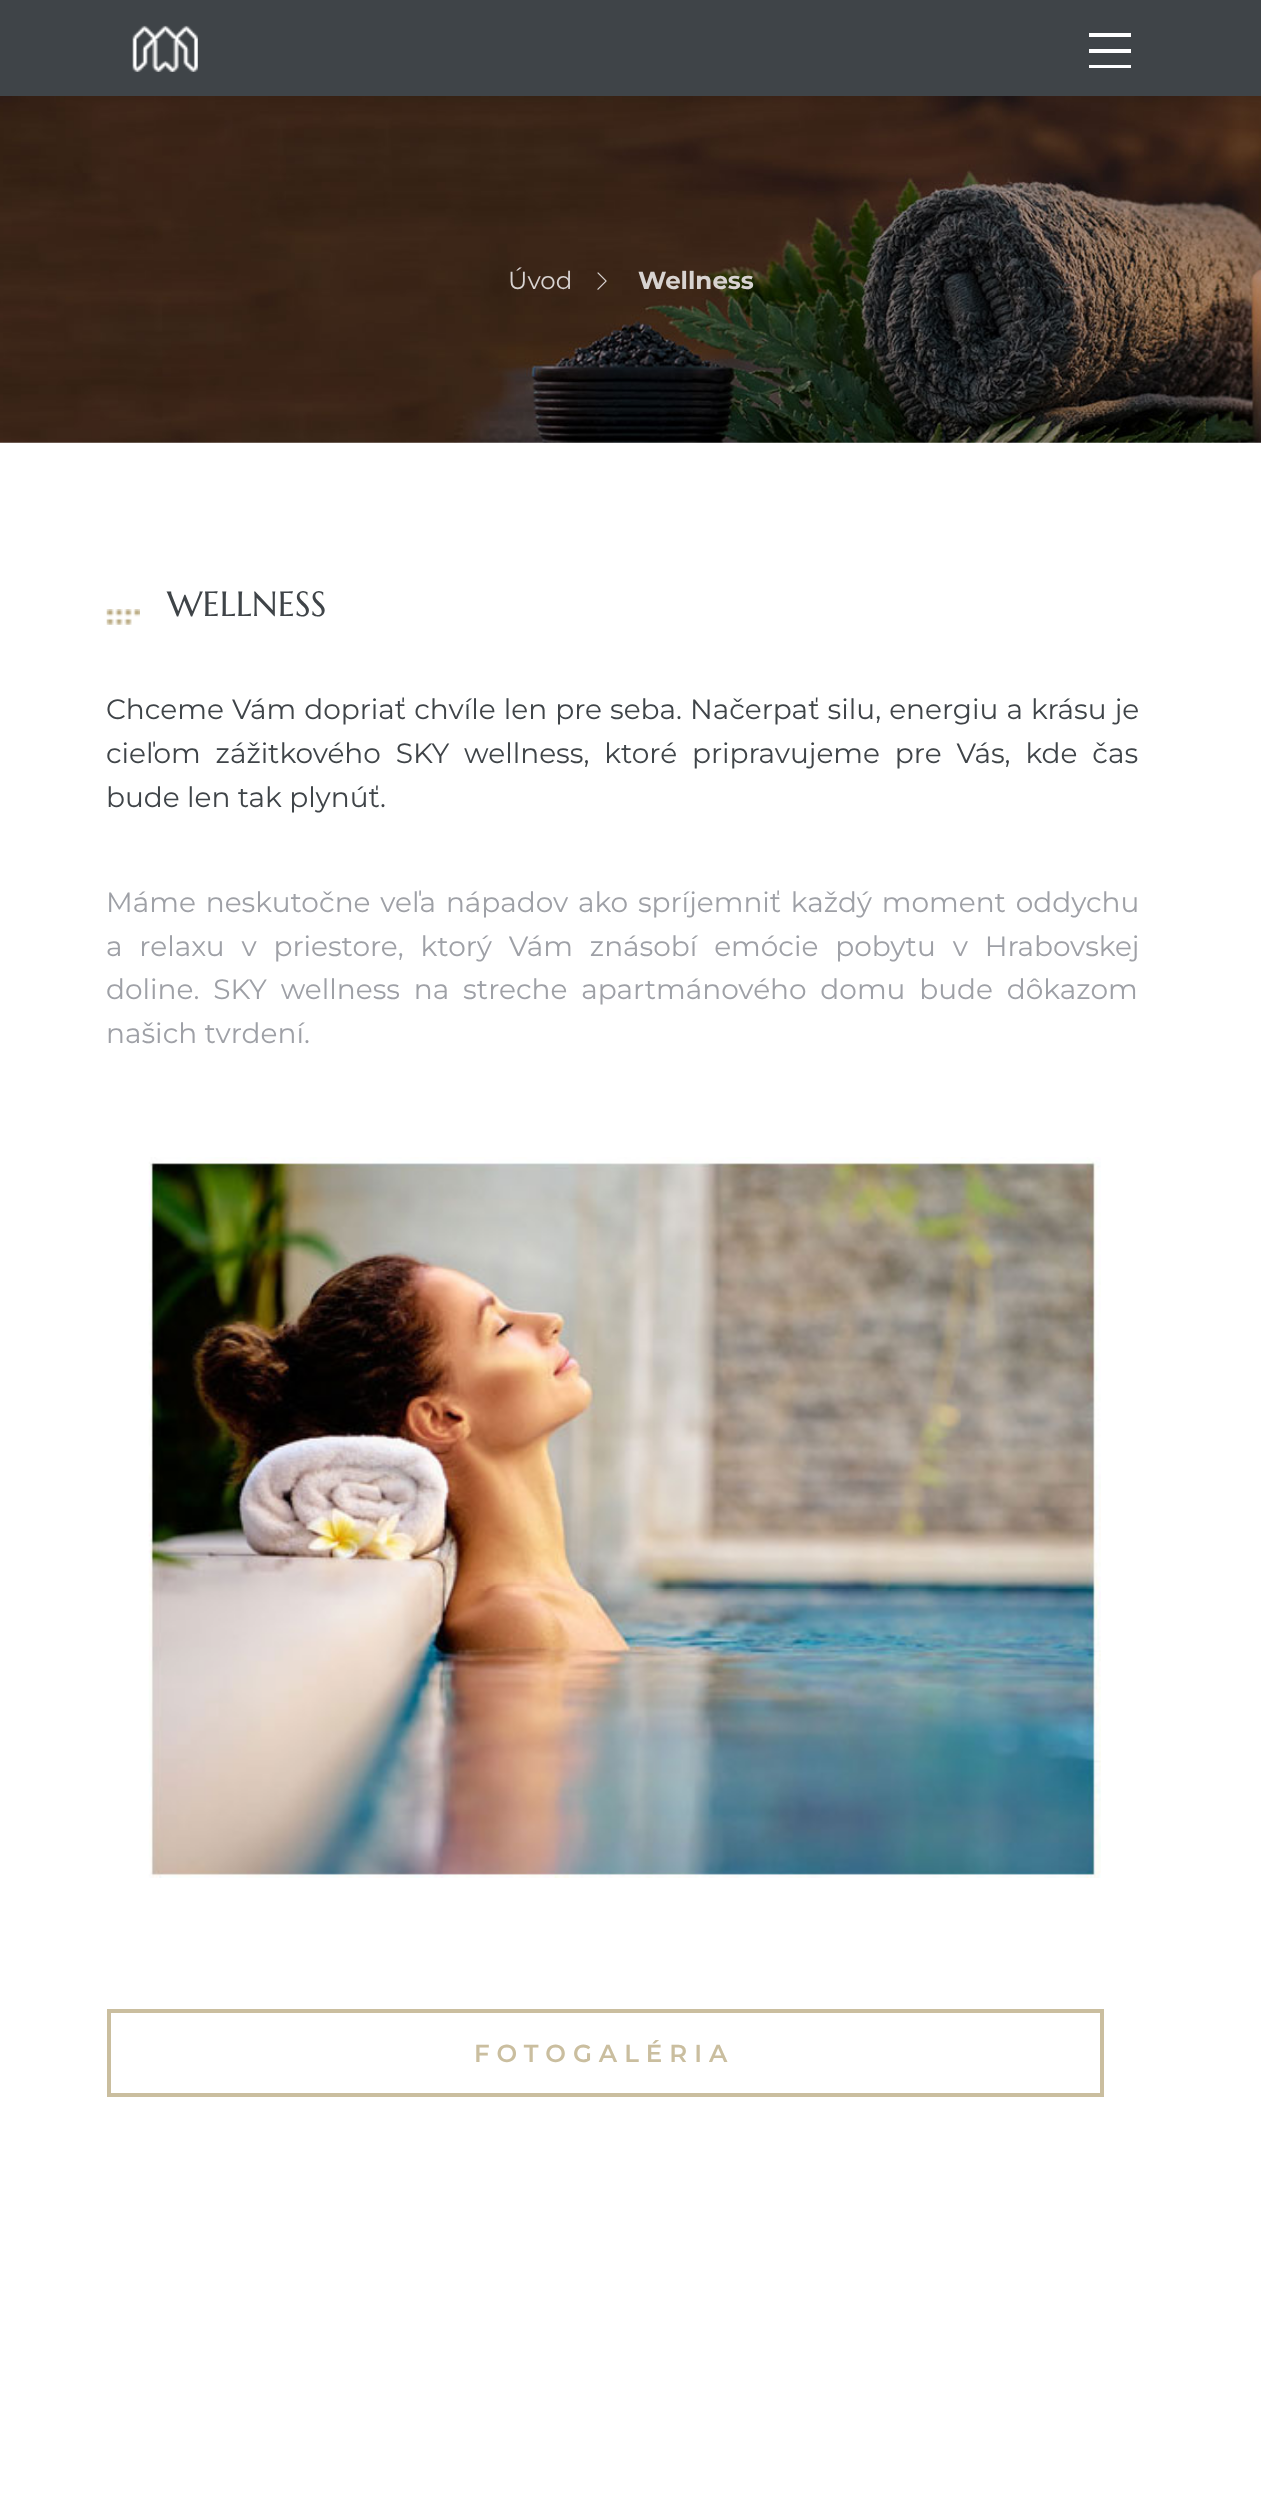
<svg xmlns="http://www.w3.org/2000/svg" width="1261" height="2493">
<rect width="100%" height="100%" fill="#fff"/>
<rect width="1261" height="96" fill="#3f4448"/>
<image x="132" y="25" width="66" height="47" href="media/1.png"/>
<rect x="1089" y="49" width="42" height="4" fill="#fff"/>
<rect x="1089" y="33" width="42" height="4" fill="#fff"/>
<rect x="1089" y="65" width="42" height="3" fill="#fff"/>
<image x="0" y="96" width="1261" height="347" href="media/2.png"/>
<text x="508" y="289" style="font-family:Montserrat;font-size:24.5px;fill:#d8d3d1">Úvod</text>
<image x="597" y="272" width="10" height="18" href="media/3.png"/>
<text x="638" y="289" style="font-family:Montserrat;font-size:24.5px;font-weight:bold;fill:#d8d3d1">Wellness</text>
<image x="106" y="609" width="34" height="16" href="media/4.png"/>
<text x="167" y="616" style="font-family:Marcellus SC;font-size:35px;fill:#3f4448">WELLNESS</text>
<text x="106" y="719" word-spacing="0.75" style="font-family:Montserrat;font-size:28px;fill:#3f4448">Chceme Vám dopriať chvíle len pre seba. Načerpať silu, energiu a krásu je</text>
<text x="106" y="763" word-spacing="7.5" style="font-family:Montserrat;font-size:28px;fill:#3f4448">cieľom zážitkového SKY wellness, ktoré pripravujeme pre Vás, kde čas</text>
<text x="106" y="807" style="font-family:Montserrat;font-size:28px;fill:#3f4448">bude len tak plynúť.</text>
<text x="106" y="912" word-spacing="2.5" style="font-family:Montserrat;font-size:28px;fill:#9ea0a6">Máme neskutočne veľa nápadov ako spríjemniť každý moment oddychu</text>
<text x="106" y="956" word-spacing="9.5" style="font-family:Montserrat;font-size:28px;fill:#9ea0a6">a relaxu v priestore, ktorý Vám znásobí emócie pobytu v Hrabovskej</text>
<text x="106" y="999" word-spacing="6.5" style="font-family:Montserrat;font-size:28px;fill:#9ea0a6">doline. SKY wellness na streche apartmánového domu bude dôkazom</text>
<text x="106" y="1043" style="font-family:Montserrat;font-size:28px;fill:#9ea0a6">našich tvrdení.</text>
<image x="148" y="1157" width="953" height="721" href="media/5.png"/>
<rect x="109" y="2011" width="993" height="84" fill="none" stroke="#cabe9f" stroke-width="4"/>
<text x="474" y="2062" style="font-family:Montserrat;font-size:24.5px;font-weight:600;letter-spacing:7px;fill:#cabe9f">FOTOGALÉRIA</text>
</svg>
